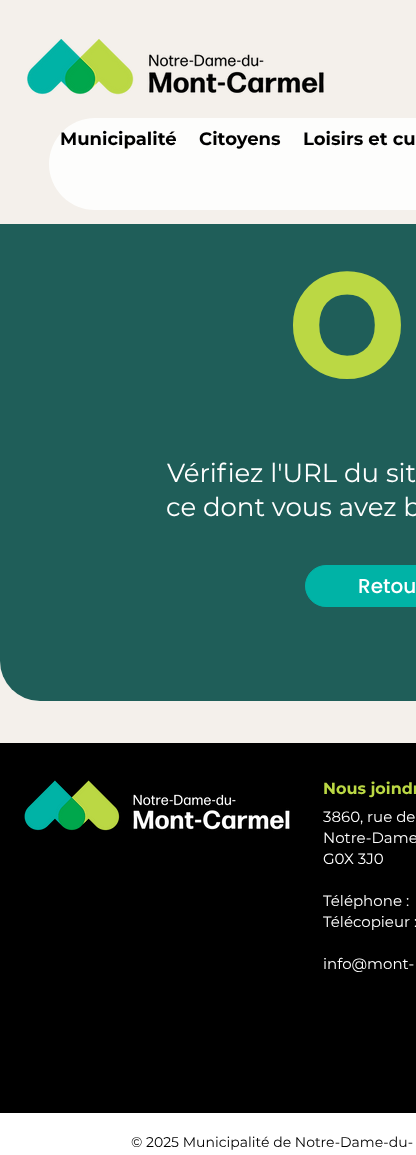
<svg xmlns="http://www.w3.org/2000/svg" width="416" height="1155">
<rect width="100%" height="100%" fill="#fff"/>
<rect y="661" width="416" height="82" fill="#f4f0eb"/>
<rect y="184" width="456" height="517" rx="40" fill="#1f5e59"/>
<rect width="416" height="224" fill="#f4f0eb"/>
<image x="27" y="39" width="297" height="56" href="media/1.png"/>
<rect x="49" y="118" width="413" height="92" rx="46" fill="#fdfdfc"/>
<text x="60" y="145" style="font-family:Montserrat;font-size:18px;font-weight:bold;fill:#000">Municipalité</text>
<text x="199" y="145" style="font-family:Montserrat;font-size:18px;font-weight:bold;fill:#000">Citoyens</text>
<text x="303" y="145" style="font-family:Montserrat;font-size:18px;font-weight:bold;fill:#000">Loisirs et cu</text>
<text x="288" y="378" style="font-family:Poppins;font-size:150px;font-weight:bold;fill:#bbd844">O</text>
<text x="167" y="482" style="font-family:Montserrat;font-size:26px;fill:#fff">Vérifiez l'URL du sit</text>
<text x="166" y="516" style="font-family:Montserrat;font-size:26px;fill:#fff">ce dont vous avez b</text>
<rect x="305.5" y="565.5" width="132" height="41" rx="20.5" fill="#00b3a6" stroke="#00b3a6"/>
<text x="358" y="593" style="font-family:Poppins;font-size:20px;font-weight:500;fill:#fff">Retou</text>
<rect y="743" width="416" height="370" fill="#000"/>
<image x="24" y="780" width="266" height="51" href="media/2.png"/>
<text x="323" y="794" style="font-family:Montserrat;font-size:16px;font-weight:bold;fill:#bbd844">Nous joindr</text>
<text x="323" y="822" style="font-family:Montserrat;font-size:15px;fill:#fff">3860, rue de</text>
<text x="323" y="843" style="font-family:Montserrat;font-size:15px;fill:#fff">Notre-Dame</text>
<text x="323" y="864" style="font-family:Montserrat;font-size:15px;fill:#fff">G0X 3J0</text>
<text x="323" y="906" style="font-family:Montserrat;font-size:15px;fill:#fff">Téléphone :</text>
<text x="323" y="927" style="font-family:Montserrat;font-size:15px;fill:#fff">Télécopieur :</text>
<text x="323" y="969" style="font-family:Montserrat;font-size:15px;fill:#fff">info@mont-</text>
<text x="131" y="1147" style="font-family:Montserrat;font-size:14px;fill:#000">© 2025 Municipalité de Notre-Dame-du-</text>
</svg>
